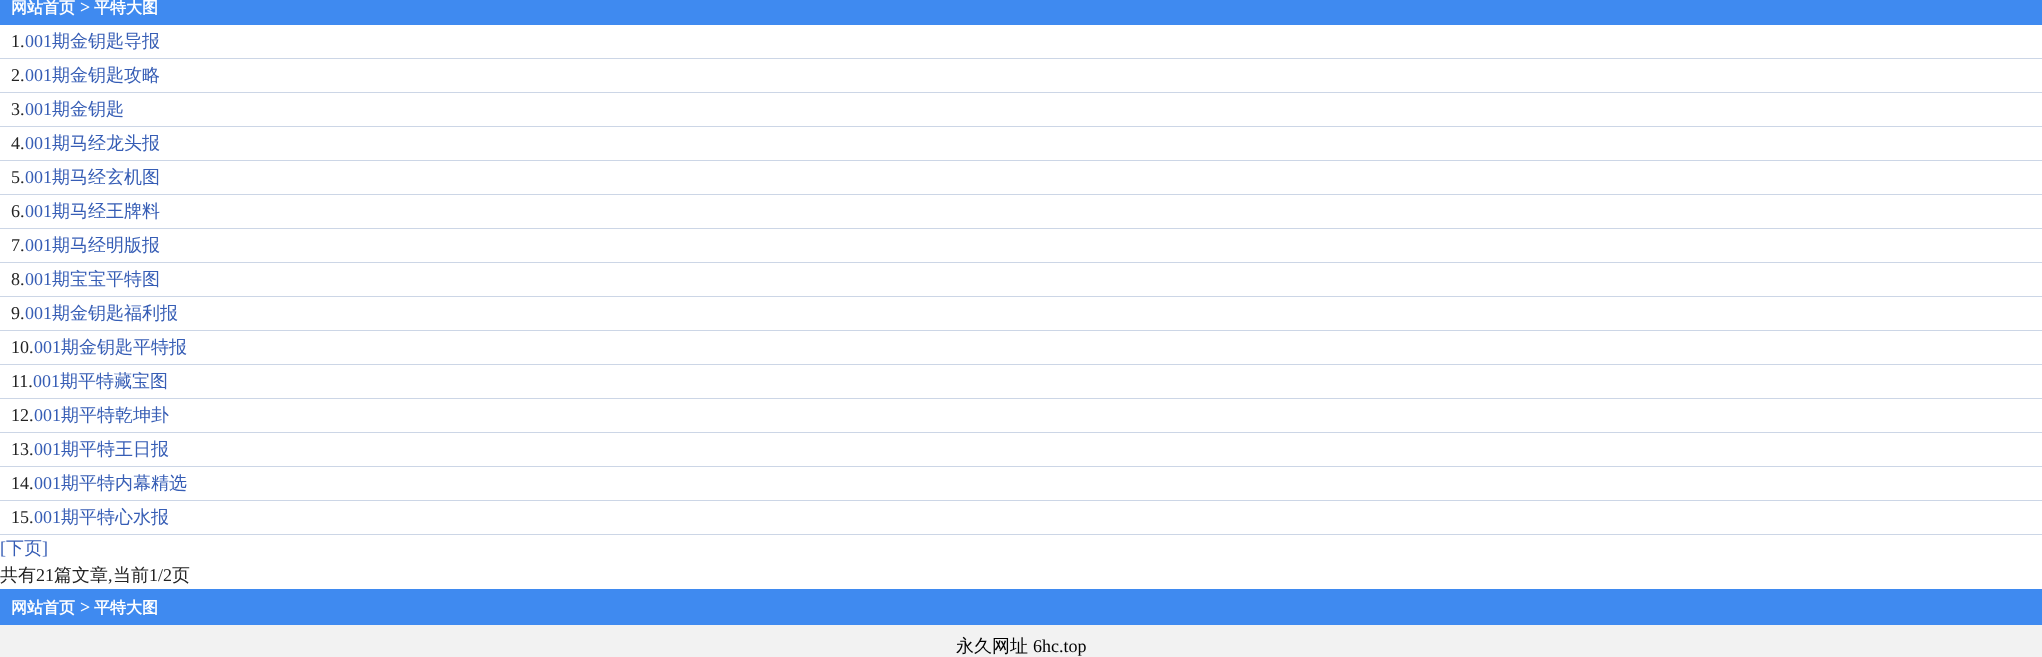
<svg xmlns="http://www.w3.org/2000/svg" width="2042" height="657">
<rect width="100%" height="100%" fill="#fff"/>
<rect width="2042" height="25" fill="#3f8af0"/>
<text x="11" y="13" style="font-family:WenQuanYi Zen Hei;font-size:16px;font-weight:bold;fill:#fff">网站首页</text>
<text x="80" y="13" style="font-family:Liberation Serif;font-size:18px;font-weight:bold;fill:#fff">&gt;</text>
<text x="94" y="13" style="font-family:WenQuanYi Zen Hei;font-size:16px;font-weight:bold;fill:#fff">平特大图</text>
<rect y="58" width="2042" height="1" fill="#ccd6e6"/>
<text x="11" y="47" style="font-family:Liberation Serif;font-size:18px;fill:#232323">1.</text>
<text x="25" y="47" style="font-family:Liberation Serif;font-size:18px;fill:#365db5">001</text>
<text x="52" y="47" style="font-family:WenQuanYi Zen Hei;font-size:18px;font-weight:500;fill:#365db5">期金钥匙导报</text>
<rect y="92" width="2042" height="1" fill="#ccd6e6"/>
<text x="11" y="81" style="font-family:Liberation Serif;font-size:18px;fill:#232323">2.</text>
<text x="25" y="81" style="font-family:Liberation Serif;font-size:18px;fill:#365db5">001</text>
<text x="52" y="81" style="font-family:WenQuanYi Zen Hei;font-size:18px;font-weight:500;fill:#365db5">期金钥匙攻略</text>
<rect y="126" width="2042" height="1" fill="#ccd6e6"/>
<text x="11" y="115" style="font-family:Liberation Serif;font-size:18px;fill:#232323">3.</text>
<text x="25" y="115" style="font-family:Liberation Serif;font-size:18px;fill:#365db5">001</text>
<text x="52" y="115" style="font-family:WenQuanYi Zen Hei;font-size:18px;font-weight:500;fill:#365db5">期金钥匙</text>
<rect y="160" width="2042" height="1" fill="#ccd6e6"/>
<text x="11" y="149" style="font-family:Liberation Serif;font-size:18px;fill:#232323">4.</text>
<text x="25" y="149" style="font-family:Liberation Serif;font-size:18px;fill:#365db5">001</text>
<text x="52" y="149" style="font-family:WenQuanYi Zen Hei;font-size:18px;font-weight:500;fill:#365db5">期马经龙头报</text>
<rect y="194" width="2042" height="1" fill="#ccd6e6"/>
<text x="11" y="183" style="font-family:Liberation Serif;font-size:18px;fill:#232323">5.</text>
<text x="25" y="183" style="font-family:Liberation Serif;font-size:18px;fill:#365db5">001</text>
<text x="52" y="183" style="font-family:WenQuanYi Zen Hei;font-size:18px;font-weight:500;fill:#365db5">期马经玄机图</text>
<rect y="228" width="2042" height="1" fill="#ccd6e6"/>
<text x="11" y="217" style="font-family:Liberation Serif;font-size:18px;fill:#232323">6.</text>
<text x="25" y="217" style="font-family:Liberation Serif;font-size:18px;fill:#365db5">001</text>
<text x="52" y="217" style="font-family:WenQuanYi Zen Hei;font-size:18px;font-weight:500;fill:#365db5">期马经王牌料</text>
<rect y="262" width="2042" height="1" fill="#ccd6e6"/>
<text x="11" y="251" style="font-family:Liberation Serif;font-size:18px;fill:#232323">7.</text>
<text x="25" y="251" style="font-family:Liberation Serif;font-size:18px;fill:#365db5">001</text>
<text x="52" y="251" style="font-family:WenQuanYi Zen Hei;font-size:18px;font-weight:500;fill:#365db5">期马经明版报</text>
<rect y="296" width="2042" height="1" fill="#ccd6e6"/>
<text x="11" y="285" style="font-family:Liberation Serif;font-size:18px;fill:#232323">8.</text>
<text x="25" y="285" style="font-family:Liberation Serif;font-size:18px;fill:#365db5">001</text>
<text x="52" y="285" style="font-family:WenQuanYi Zen Hei;font-size:18px;font-weight:500;fill:#365db5">期宝宝平特图</text>
<rect y="330" width="2042" height="1" fill="#ccd6e6"/>
<text x="11" y="319" style="font-family:Liberation Serif;font-size:18px;fill:#232323">9.</text>
<text x="25" y="319" style="font-family:Liberation Serif;font-size:18px;fill:#365db5">001</text>
<text x="52" y="319" style="font-family:WenQuanYi Zen Hei;font-size:18px;font-weight:500;fill:#365db5">期金钥匙福利报</text>
<rect y="364" width="2042" height="1" fill="#ccd6e6"/>
<text x="11" y="353" style="font-family:Liberation Serif;font-size:18px;fill:#232323">10.</text>
<text x="34" y="353" style="font-family:Liberation Serif;font-size:18px;fill:#365db5">001</text>
<text x="61" y="353" style="font-family:WenQuanYi Zen Hei;font-size:18px;font-weight:500;fill:#365db5">期金钥匙平特报</text>
<rect y="398" width="2042" height="1" fill="#ccd6e6"/>
<text x="11" y="387" style="font-family:Liberation Serif;font-size:18px;fill:#232323">11.</text>
<text x="33" y="387" style="font-family:Liberation Serif;font-size:18px;fill:#365db5">001</text>
<text x="60" y="387" style="font-family:WenQuanYi Zen Hei;font-size:18px;font-weight:500;fill:#365db5">期平特藏宝图</text>
<rect y="432" width="2042" height="1" fill="#ccd6e6"/>
<text x="11" y="421" style="font-family:Liberation Serif;font-size:18px;fill:#232323">12.</text>
<text x="34" y="421" style="font-family:Liberation Serif;font-size:18px;fill:#365db5">001</text>
<text x="61" y="421" style="font-family:WenQuanYi Zen Hei;font-size:18px;font-weight:500;fill:#365db5">期平特乾坤卦</text>
<rect y="466" width="2042" height="1" fill="#ccd6e6"/>
<text x="11" y="455" style="font-family:Liberation Serif;font-size:18px;fill:#232323">13.</text>
<text x="34" y="455" style="font-family:Liberation Serif;font-size:18px;fill:#365db5">001</text>
<text x="61" y="455" style="font-family:WenQuanYi Zen Hei;font-size:18px;font-weight:500;fill:#365db5">期平特王日报</text>
<rect y="500" width="2042" height="1" fill="#ccd6e6"/>
<text x="11" y="489" style="font-family:Liberation Serif;font-size:18px;fill:#232323">14.</text>
<text x="34" y="489" style="font-family:Liberation Serif;font-size:18px;fill:#365db5">001</text>
<text x="61" y="489" style="font-family:WenQuanYi Zen Hei;font-size:18px;font-weight:500;fill:#365db5">期平特内幕精选</text>
<rect y="534" width="2042" height="1" fill="#ccd6e6"/>
<text x="11" y="523" style="font-family:Liberation Serif;font-size:18px;fill:#232323">15.</text>
<text x="34" y="523" style="font-family:Liberation Serif;font-size:18px;fill:#365db5">001</text>
<text x="61" y="523" style="font-family:WenQuanYi Zen Hei;font-size:18px;font-weight:500;fill:#365db5">期平特心水报</text>
<text x="0" y="554" style="font-family:Liberation Serif;font-size:18px;fill:#365db5">[</text>
<text x="6" y="554" style="font-family:WenQuanYi Zen Hei;font-size:18px;font-weight:500;fill:#365db5">下页</text>
<text x="42" y="554" style="font-family:Liberation Serif;font-size:18px;fill:#365db5">]</text>
<text x="0" y="581" style="font-family:WenQuanYi Zen Hei;font-size:18px;font-weight:500;fill:#232323">共有</text>
<text x="36" y="581" style="font-family:Liberation Serif;font-size:18px;fill:#232323">21</text>
<text x="54" y="581" style="font-family:WenQuanYi Zen Hei;font-size:18px;font-weight:500;fill:#232323">篇文章</text>
<text x="108" y="581" style="font-family:Liberation Serif;font-size:18px;fill:#232323">,</text>
<text x="113" y="581" style="font-family:WenQuanYi Zen Hei;font-size:18px;font-weight:500;fill:#232323">当前</text>
<text x="149" y="581" style="font-family:Liberation Serif;font-size:18px;fill:#232323">1/2</text>
<text x="172" y="581" style="font-family:WenQuanYi Zen Hei;font-size:18px;font-weight:500;fill:#232323">页</text>
<rect y="589" width="2042" height="36" fill="#3f8af0"/>
<text x="11" y="613" style="font-family:WenQuanYi Zen Hei;font-size:16px;font-weight:bold;fill:#fff">网站首页</text>
<text x="80" y="613" style="font-family:Liberation Serif;font-size:18px;font-weight:bold;fill:#fff">&gt;</text>
<text x="94" y="613" style="font-family:WenQuanYi Zen Hei;font-size:16px;font-weight:bold;fill:#fff">平特大图</text>
<rect y="625" width="2042" height="32" fill="#f2f2f2"/>
<text x="956" y="652" style="font-family:WenQuanYi Zen Hei;font-size:18px;font-weight:500;fill:#000">永久网址</text>
<text x="1033" y="652" style="font-family:Liberation Serif;font-size:18px;fill:#000">6hc.top</text>
</svg>
